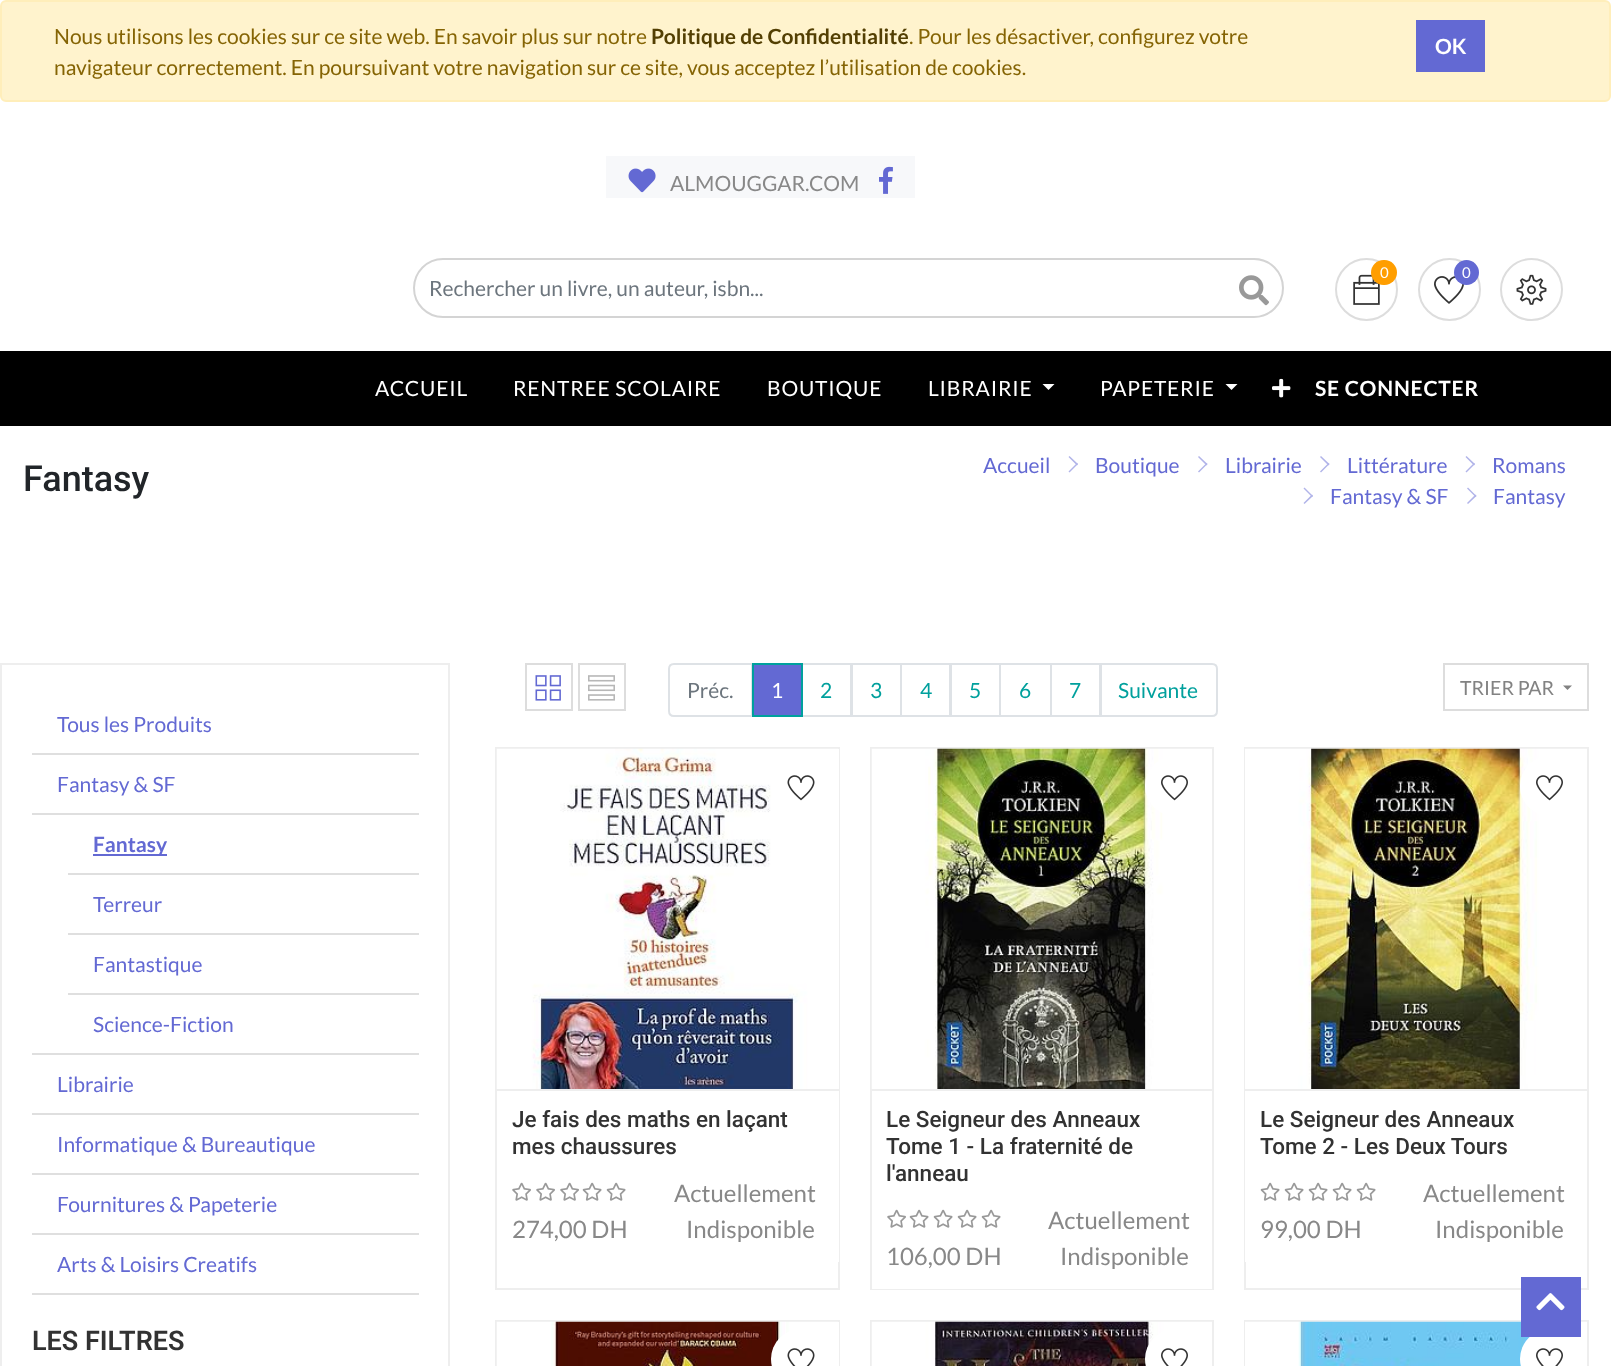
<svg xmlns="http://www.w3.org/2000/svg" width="1611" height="1366">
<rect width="100%" height="100%" fill="#fff"/>
<rect x="1" y="1" width="1609" height="100" rx="5" fill="#fff3cd" stroke="#ffeeba" stroke-width="2"/>
<text x="54" y="44" style="font-family:Lato;font-size:21px;fill:#856404">Nous utilisons les cookies sur ce site web. En savoir plus sur notre</text>
<text x="651" y="44" style="font-family:Lato;font-size:21px;font-weight:bold;fill:#533f03">Politique de Confidentialité</text>
<text x="909" y="44" style="font-family:Lato;font-size:21px;fill:#856404">. Pour les désactiver, configurez votre</text>
<text x="54" y="75" style="font-family:Lato;font-size:21px;fill:#856404">navigateur correctement. En poursuivant votre navigation sur ce site, vous acceptez l’utilisation de cookies.</text>
<rect x="1416" y="20" width="69" height="52" fill="#6369d3"/>
<text x="1435" y="54" style="font-family:Lato;font-size:21px;font-weight:bold;fill:#fff">OK</text>
<rect x="606" y="156" width="309" height="42" fill="#f7f8fa"/>
<image x="628" y="168" width="28" height="25" href="media/1.png"/>
<text x="670" y="191" style="font-family:Lato;font-size:21px;fill:#888">ALMOUGGAR.COM</text>
<image x="879" y="166" width="14" height="28" href="media/2.png"/>
<circle cx="1366.5" cy="289.5" r="30.5" fill="none" stroke="#ddd" stroke-width="2"/>
<image x="1353" y="274" width="27" height="31" href="media/3.png"/>
<rect x="1371" y="260" width="26" height="25" rx="12.5" fill="#ff9e00"/>
<text x="1380" y="278" style="font-family:Lato;font-size:15px;fill:#fff">0</text>
<circle cx="1449.5" cy="289.5" r="30.5" fill="none" stroke="#ddd" stroke-width="2"/>
<image x="1434" y="276" width="30" height="28" href="media/4.png"/>
<circle cx="1466.5" cy="272.5" r="12.5" fill="#6369d3"/>
<text x="1462" y="278" style="font-family:Lato;font-size:15px;fill:#fff">0</text>
<circle cx="1531.5" cy="289.5" r="30.5" fill="none" stroke="#ddd" stroke-width="2"/>
<image x="1516" y="274" width="31" height="31" href="media/5.png"/>
<rect x="414" y="259" width="869" height="58" rx="29" fill="none" stroke="#d4d4d4" stroke-width="2"/>
<text x="429" y="296" style="font-family:Lato;font-size:21px;fill:#6c757d">Rechercher un livre, un auteur, isbn...</text>
<image x="1239" y="275" width="30" height="31" href="media/6.png"/>
<rect y="351" width="1611" height="75" fill="#000"/>
<text x="375" y="396" style="font-family:Lato;font-size:21px;letter-spacing:0.8px;fill:#fff">ACCUEIL</text>
<text x="513" y="396" style="font-family:Lato;font-size:21px;letter-spacing:0.8px;fill:#fff">RENTREE SCOLAIRE</text>
<text x="767" y="396" style="font-family:Lato;font-size:21px;letter-spacing:0.8px;fill:#fff">BOUTIQUE</text>
<text x="928" y="396" style="font-family:Lato;font-size:21px;letter-spacing:0.8px;fill:#fff">LIBRAIRIE</text>
<path d="M1042.5 384h12l-6 6z" fill="#fff"/>
<text x="1100" y="396" style="font-family:Lato;font-size:21px;letter-spacing:0.8px;fill:#fff">PAPETERIE</text>
<path d="M1225.5 384h12l-6 6z" fill="#fff"/>
<image x="1272" y="378" width="19" height="20" href="media/7.png"/>
<text x="1315" y="396" style="font-family:Lato;font-size:21px;font-weight:bold;letter-spacing:0.8px;fill:#fff">SE CONNECTER</text>
<text x="23" y="491" style="font-family:Roboto;font-size:36px;font-weight:500;fill:#212529">Fantasy</text>
<text x="983" y="473" style="font-family:Lato;font-size:21px;fill:#6369d3">Accueil</text>
<path d="M1069.5 456l8.5 8l-1 1.5l-8.5-8.5z" fill="#b1b4e9"/>
<path d="M1077 463l1 1l-8.5 8.5l-1-1z" fill="#b1b4e9"/>
<text x="1095" y="473" style="font-family:Lato;font-size:21px;fill:#6369d3">Boutique</text>
<path d="M1199 456l8.5 8l-1 1.5l-8.5-8.5z" fill="#b1b4e9"/>
<path d="M1206.5 463l1 1l-8.5 8.5l-1-1z" fill="#b1b4e9"/>
<text x="1225" y="473" style="font-family:Lato;font-size:21px;fill:#6369d3">Librairie</text>
<path d="M1321 456l8.5 8l-1 1.5l-8.5-8.5z" fill="#b1b4e9"/>
<path d="M1328.5 463l1 1l-8.5 8.5l-1-1z" fill="#b1b4e9"/>
<text x="1347" y="473" style="font-family:Lato;font-size:21px;fill:#6369d3">Littérature</text>
<path d="M1466.5 456l8.5 8l-1 1.5l-8.5-8.5z" fill="#b1b4e9"/>
<path d="M1474 463l1 1l-8.5 8.5l-1-1z" fill="#b1b4e9"/>
<text x="1492" y="473" style="font-family:Lato;font-size:21px;fill:#6369d3">Romans</text>
<path d="M1304.5 487.5l8.5 8.5l-1 1l-8.5-8.5z" fill="#b1b4e9"/>
<path d="M1312 494.5l1 1.5l-8.5 8l-1-1z" fill="#b1b4e9"/>
<text x="1330" y="504" style="font-family:Lato;font-size:21px;fill:#6369d3">Fantasy &amp; SF</text>
<path d="M1468 487.5l8.5 8.5l-1 1l-8.5-8.5z" fill="#b1b4e9"/>
<path d="M1475.5 494.5l1 1.5l-8.5 8l-1-1z" fill="#b1b4e9"/>
<text x="1493" y="504" style="font-family:Lato;font-size:21px;fill:#6369d3">Fantasy</text>
<rect x="1" y="664" width="448" height="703" fill="none" stroke="#eee" stroke-width="2"/>
<text x="57" y="732" style="font-family:Lato;font-size:21px;fill:#6369d3">Tous les Produits</text>
<rect x="32" y="753" width="387" height="2" fill="#dfdfdf"/>
<rect x="32" y="813" width="387" height="2" fill="#dfdfdf"/>
<text x="57" y="792" style="font-family:Lato;font-size:21px;fill:#6369d3">Fantasy &amp; SF</text>
<rect x="93" y="854" width="74" height="2" fill="#6369d3"/>
<text x="93" y="852" style="font-family:Lato;font-size:21px;font-weight:bold;fill:#6369d3">Fantasy</text>
<rect x="68" y="873" width="351" height="2" fill="#dfdfdf"/>
<text x="93" y="912" style="font-family:Lato;font-size:21px;fill:#6369d3">Terreur</text>
<rect x="68" y="933" width="351" height="2" fill="#dfdfdf"/>
<text x="93" y="972" style="font-family:Lato;font-size:21px;fill:#6369d3">Fantastique</text>
<rect x="68" y="993" width="351" height="2" fill="#dfdfdf"/>
<text x="93" y="1032" style="font-family:Lato;font-size:21px;fill:#6369d3">Science-Fiction</text>
<rect x="32" y="1053" width="387" height="2" fill="#dfdfdf"/>
<text x="57" y="1092" style="font-family:Lato;font-size:21px;fill:#6369d3">Librairie</text>
<rect x="32" y="1113" width="387" height="2" fill="#dfdfdf"/>
<text x="57" y="1152" style="font-family:Lato;font-size:21px;fill:#6369d3">Informatique &amp; Bureautique</text>
<rect x="32" y="1173" width="387" height="2" fill="#dfdfdf"/>
<text x="57" y="1212" style="font-family:Lato;font-size:21px;fill:#6369d3">Fournitures &amp; Papeterie</text>
<rect x="32" y="1233" width="387" height="2" fill="#dfdfdf"/>
<rect x="32" y="1293" width="387" height="2" fill="#dfdfdf"/>
<text x="57" y="1272" style="font-family:Lato;font-size:21px;fill:#6369d3">Arts &amp; Loisirs Creatifs</text>
<text x="32" y="1350" style="font-family:Roboto;font-size:27px;font-weight:600;fill:#323232">LES FILTRES</text>
<rect x="526" y="664" width="46" height="46" fill="none" stroke="#ddd" stroke-width="2"/>
<image x="535" y="675" width="26" height="26" href="media/8.png"/>
<rect x="579" y="664" width="46" height="46" fill="none" stroke="#ddd" stroke-width="2"/>
<image x="588" y="675" width="27" height="26" href="media/9.png"/>
<path d="M674 664h78v52h-78c-3 0-5-2-5-5v-42c0-3 2-5 5-5z" fill="none" stroke="#dee2e6" stroke-width="2"/>
<text x="687" y="698" style="font-family:Lato;font-size:21px;fill:#6c757d">Préc.</text>
<rect x="802" y="664" width="49" height="52" fill="none" stroke="#dee2e6" stroke-width="2"/>
<rect x="753" y="664" width="49" height="52" fill="#6369d3" stroke="#00a09d" stroke-width="2"/>
<text x="771" y="698" style="font-family:Lato;font-size:21px;fill:#fff">1</text>
<text x="820" y="698" style="font-family:Lato;font-size:21px;fill:#00a09d">2</text>
<rect x="852" y="664" width="49" height="52" fill="none" stroke="#dee2e6" stroke-width="2"/>
<text x="870" y="698" style="font-family:Lato;font-size:21px;fill:#00a09d">3</text>
<rect x="901" y="664" width="49" height="52" fill="none" stroke="#dee2e6" stroke-width="2"/>
<text x="920" y="698" style="font-family:Lato;font-size:21px;fill:#00a09d">4</text>
<rect x="951" y="664" width="49" height="52" fill="none" stroke="#dee2e6" stroke-width="2"/>
<text x="969" y="698" style="font-family:Lato;font-size:21px;fill:#00a09d">5</text>
<rect x="1000" y="664" width="51" height="52" fill="none" stroke="#dee2e6" stroke-width="2"/>
<text x="1019" y="698" style="font-family:Lato;font-size:21px;fill:#00a09d">6</text>
<rect x="1051" y="664" width="49" height="52" fill="none" stroke="#dee2e6" stroke-width="2"/>
<text x="1069" y="698" style="font-family:Lato;font-size:21px;fill:#00a09d">7</text>
<path d="M1101 664h111c3 0 5 2 5 5v42c0 3-2 5-5 5h-111z" fill="#fff" stroke="#dee2e6" stroke-width="2"/>
<text x="1118" y="698" style="font-family:Lato;font-size:21px;fill:#00a09d">Suivante</text>
<rect x="1444" y="664" width="144" height="46" fill="none" stroke="#ddd" stroke-width="2"/>
<text x="1460" y="695" style="font-family:Lato;font-size:19.5px;fill:#828282">TRIER PAR</text>
<path d="M1563 685.5h9l-4.5 4.5z" fill="#828282"/>
<rect x="496" y="748" width="343" height="541" fill="none" stroke="#eee" stroke-width="2"/>
<rect x="838" y="749" width="1" height="513" fill="#fff"/>
<image x="496" y="748" width="342" height="341" href="media/10.png"/>
<image x="787" y="775" width="28" height="26" href="media/11.png"/>
<rect x="497" y="1089" width="342" height="2" fill="#eee"/>
<text x="512" y="1127" style="font-family:Roboto;font-size:22.5px;font-weight:500;fill:#323232">Je fais des maths en laçant</text>
<text x="512" y="1154" style="font-family:Roboto;font-size:22.5px;font-weight:500;fill:#323232">mes chaussures</text>
<image x="512" y="1182" width="19" height="19" href="media/12.png"/>
<image x="536" y="1182" width="19" height="19" href="media/12.png"/>
<image x="560" y="1182" width="19" height="19" href="media/12.png"/>
<image x="582" y="1182" width="20" height="19" href="media/13.png"/>
<image x="606" y="1182" width="20" height="19" href="media/13.png"/>
<text x="674" y="1202" style="font-family:Lato;font-size:24px;fill:#888">Actuellement</text>
<text x="512" y="1238" style="font-family:Lato;font-size:24px;fill:#888">274,00 DH</text>
<text x="686" y="1238" style="font-family:Lato;font-size:24px;fill:#888">Indisponible</text>
<rect x="871" y="748" width="342" height="541" fill="none" stroke="#eee" stroke-width="2"/>
<rect x="872" y="1288" width="340" height="1" fill="#fff"/>
<image x="871" y="748" width="341" height="341" href="media/14.png"/>
<circle cx="1175" cy="786" r="30" fill="#fff"/>
<image x="1161" y="775" width="27" height="26" href="media/15.png"/>
<rect x="872" y="1089" width="340" height="2" fill="#eee"/>
<text x="886" y="1127" style="font-family:Roboto;font-size:22.5px;font-weight:500;fill:#323232">Le Seigneur des Anneaux</text>
<text x="886" y="1154" style="font-family:Roboto;font-size:22.5px;font-weight:500;fill:#323232">Tome 1 - La fraternité de</text>
<text x="886" y="1181" style="font-family:Roboto;font-size:22.5px;font-weight:500;fill:#323232">l'anneau</text>
<image x="887" y="1209" width="19" height="19" href="media/12.png"/>
<image x="909" y="1209" width="20" height="19" href="media/13.png"/>
<image x="933" y="1209" width="20" height="19" href="media/13.png"/>
<image x="957" y="1209" width="20" height="19" href="media/13.png"/>
<image x="981" y="1209" width="20" height="19" href="media/13.png"/>
<text x="1048" y="1229" style="font-family:Lato;font-size:24px;fill:#888">Actuellement</text>
<text x="886" y="1265" style="font-family:Lato;font-size:24px;fill:#888">106,00 DH</text>
<text x="1060" y="1265" style="font-family:Lato;font-size:24px;fill:#888">Indisponible</text>
<rect x="1245" y="748" width="343" height="541" fill="none" stroke="#eee" stroke-width="2"/>
<rect x="1245" y="1091" width="1" height="171" fill="#fff"/>
<image x="1245" y="748" width="342" height="341" href="media/16.png"/>
<circle cx="1550" cy="786" r="30" fill="#fff"/>
<image x="1536" y="775" width="27" height="26" href="media/15.png"/>
<rect x="1245" y="1089" width="342" height="2" fill="#eee"/>
<text x="1260" y="1127" style="font-family:Roboto;font-size:22.5px;font-weight:500;fill:#323232">Le Seigneur des Anneaux</text>
<text x="1260" y="1154" style="font-family:Roboto;font-size:22.5px;font-weight:500;fill:#323232">Tome 2 - Les Deux Tours</text>
<image x="1260" y="1182" width="20" height="19" href="media/13.png"/>
<image x="1284" y="1182" width="20" height="19" href="media/13.png"/>
<image x="1308" y="1182" width="20" height="19" href="media/13.png"/>
<image x="1332" y="1182" width="20" height="19" href="media/13.png"/>
<image x="1356" y="1182" width="20" height="19" href="media/13.png"/>
<text x="1423" y="1202" style="font-family:Lato;font-size:24px;fill:#888">Actuellement</text>
<text x="1260" y="1238" style="font-family:Lato;font-size:24px;fill:#888">99,00 DH</text>
<text x="1435" y="1238" style="font-family:Lato;font-size:24px;fill:#888">Indisponible</text>
<rect x="496" y="1321" width="343" height="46" fill="none" stroke="#eee" stroke-width="2"/>
<rect x="838" y="1322" width="1" height="44" fill="#fff"/>
<image x="496" y="1321" width="342" height="45" href="media/17.png"/>
<circle cx="801" cy="1359" r="30" fill="#fff"/>
<image x="787" y="1348" width="28" height="18" href="media/18.png"/>
<rect x="871" y="1321" width="342" height="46" fill="none" stroke="#eee" stroke-width="2"/>
<image x="871" y="1321" width="341" height="45" href="media/19.png"/>
<circle cx="1175" cy="1359" r="30" fill="#fff"/>
<image x="1161" y="1348" width="27" height="18" href="media/20.png"/>
<rect x="1245" y="1321" width="343" height="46" fill="none" stroke="#eee" stroke-width="2"/>
<image x="1245" y="1321" width="342" height="45" href="media/21.png"/>
<circle cx="1550" cy="1359" r="30" fill="#fff"/>
<image x="1536" y="1348" width="27" height="18" href="media/20.png"/>
<rect x="1521" y="1277" width="60" height="60" fill="#6369d3"/>
<image x="1536" y="1293" width="29" height="18" href="media/22.png"/>
</svg>
